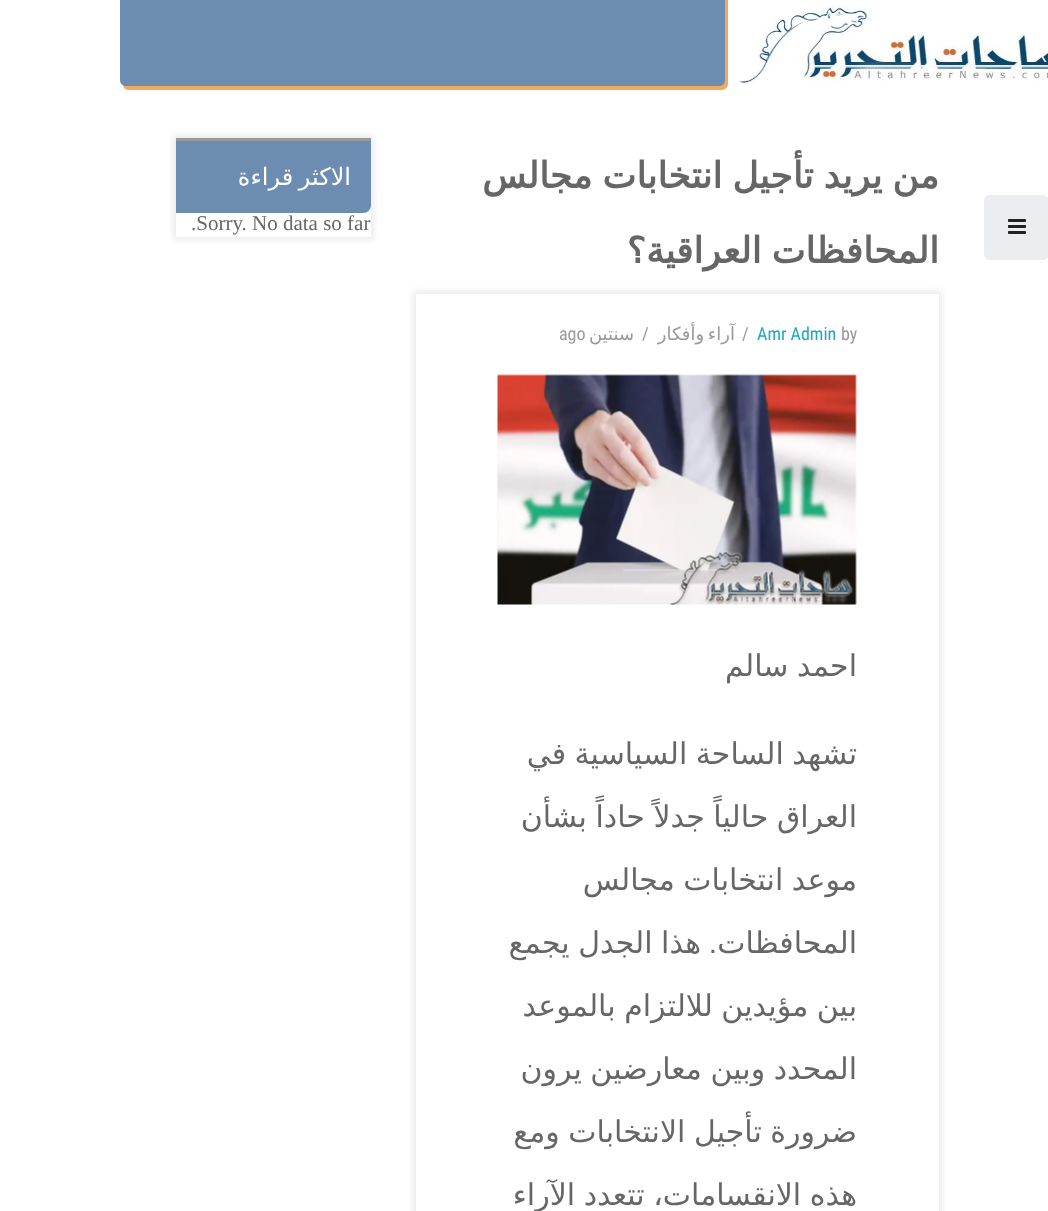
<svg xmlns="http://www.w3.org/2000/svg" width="1048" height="1211">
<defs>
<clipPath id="clip1"><path d="M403 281h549v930h-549zm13 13h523v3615h-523z" clip-rule="evenodd"/></clipPath>
</defs>
<rect width="100%" height="100%" fill="#fff"/>
<path d="M123 85c0 3 3 5 6 5h593c3 0 6-3 6-6v-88c0-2-1-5-4-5v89c0 3-2 6-6 6h-592z" fill="#f1a960"/>
<path d="M120 0h605v80c0 3.5-2.5 6-6 6h-593c-3.5 0-6-2.5-6-6z" fill="#6d8cb1"/>
<rect x="984" y="195" width="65" height="65" rx="6" fill="#ecedf1"/>
<image x="1008" y="219" width="18" height="15" href="media/1.png"/>
<image x="738" y="6" width="310" height="77" href="media/2.png"/>
<text x="939" y="188" word-spacing="-1.5" style="font-family:DejaVu Sans;font-size:36px;font-weight:bold;direction:rtl;fill:#666">من يريد تأجيل انتخابات مجالس</text>
<text x="939" y="263" word-spacing="-1.5" style="font-family:DejaVu Sans;font-size:36px;font-weight:bold;direction:rtl;fill:#666">المحافظات العراقية؟</text>
<g clip-path="url(#clip1)">
<rect x="413" y="291" width="529" height="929" fill="#ebebeb" filter="blur(3px)"/>
</g>
<text x="841" y="340" style="font-family:Roboto Condensed;font-size:18px;fill:#999">by</text>
<text x="757" y="340" style="font-family:Roboto Condensed;font-size:18px;fill:#20a7bb">Amr Admin</text>
<text x="742" y="340" style="font-family:Roboto Condensed;font-size:18px;fill:#999">/</text>
<text x="735" y="340" word-spacing="-2" style="font-family:DejaVu Sans;font-size:18px;direction:rtl;fill:#999">آراء وأفكار</text>
<text x="642" y="340" style="font-family:Roboto Condensed;font-size:18px;fill:#999">/</text>
<text x="634" y="340" style="font-family:DejaVu Sans;font-size:18px;direction:rtl;fill:#999">سنتين</text>
<text x="559" y="340" style="font-family:Roboto Condensed;font-size:18px;fill:#999">ago</text>
<image x="497" y="374" width="360" height="231" href="media/3.png"/>
<text x="857" y="676" word-spacing="-1" style="font-family:DejaVu Sans;font-size:30px;direction:rtl;fill:#666">احمد سالم</text>
<text x="857" y="764" word-spacing="-1" style="font-family:DejaVu Sans;font-size:30px;direction:rtl;fill:#666">تشهد الساحة السياسية في</text>
<text x="857" y="827" word-spacing="-1" style="font-family:DejaVu Sans;font-size:30px;direction:rtl;fill:#666">العراق حالياً جدلاً حاداً بشأن</text>
<text x="857" y="890" word-spacing="-1" style="font-family:DejaVu Sans;font-size:30px;direction:rtl;fill:#666">موعد انتخابات مجالس</text>
<text x="857" y="953" style="font-family:DejaVu Sans;font-size:30px;direction:rtl;fill:#666">المحافظات</text>
<text x="717" y="953" style="font-family:Liberation Sans;font-size:30px;direction:rtl;fill:#666">.</text>
<text x="701" y="953" word-spacing="-1" style="font-family:DejaVu Sans;font-size:30px;direction:rtl;fill:#666">هذا الجدل يجمع</text>
<text x="857" y="1016" word-spacing="-1" style="font-family:DejaVu Sans;font-size:30px;direction:rtl;fill:#666">بين مؤيدين للالتزام بالموعد</text>
<text x="857" y="1079" word-spacing="-1" style="font-family:DejaVu Sans;font-size:30px;direction:rtl;fill:#666">المحدد وبين معارضين يرون</text>
<text x="857" y="1142" word-spacing="-1" style="font-family:DejaVu Sans;font-size:30px;direction:rtl;fill:#666">ضرورة تأجيل الانتخابات ومع</text>
<text x="857" y="1205" word-spacing="-1" style="font-family:DejaVu Sans;font-size:30px;direction:rtl;fill:#666">هذه الانقسامات، تتعدد الآراء</text>
<rect x="173" y="135" width="201" height="105" fill="#ebebeb" filter="blur(3px)"/>
<rect x="176" y="205" width="195" height="32" fill="#fff"/>
<path d="M176 138h195v67c0 4.5-3.5 8-8 8h-187z" fill="#6d8cb2"/>
<rect x="176" y="138" width="195" height="3" fill="#98999b"/>
<text x="351" y="185" word-spacing="-2" style="font-family:DejaVu Sans;font-size:24px;direction:rtl;fill:#fff">الاكثر قراءة</text>
<text x="191" y="230" style="font-family:Liberation Serif;font-size:21px;fill:#666">.Sorry. No data so far</text>
</svg>
